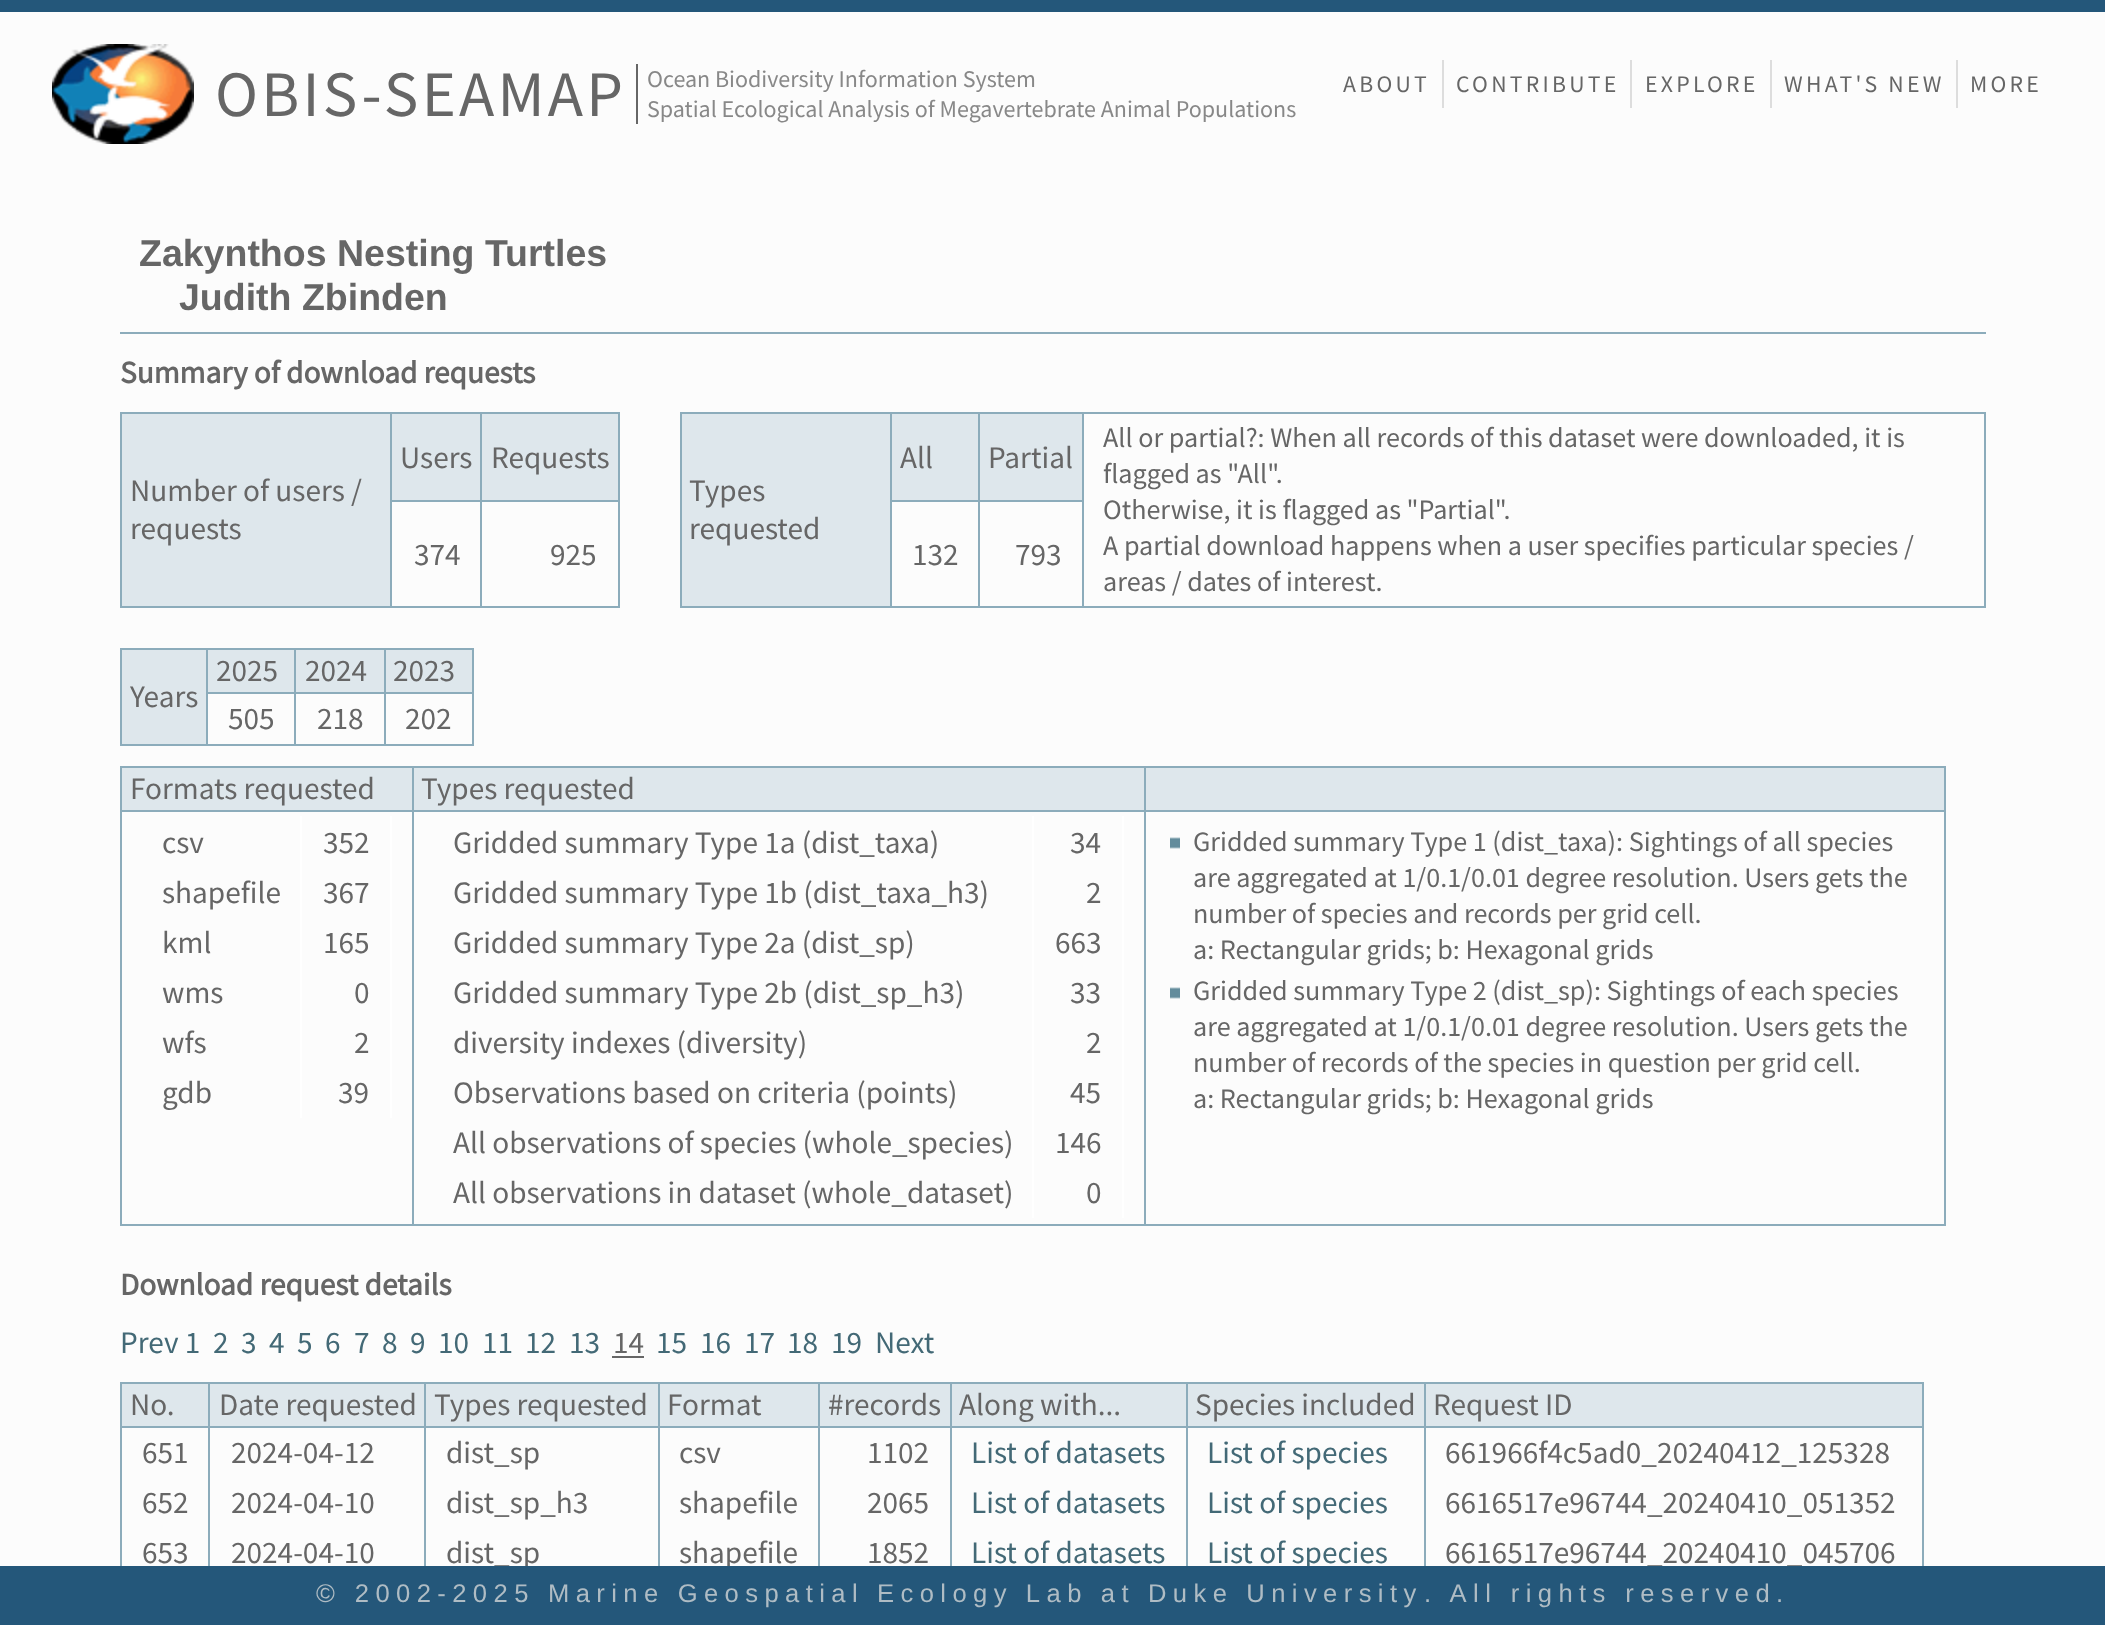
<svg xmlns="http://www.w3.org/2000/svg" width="2105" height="1625">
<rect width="100%" height="100%" fill="#fcfcfc"/>
<rect width="2105" height="12" fill="#24577a"/>
<image x="52" y="44" width="142" height="100" href="media/1.png"/>
<text x="215" y="116" style="font-family:Source Sans Pro;font-size:64.75px;letter-spacing:3.25px;fill:#666">OBIS-SEAMAP</text>
<rect x="636" y="64" width="2" height="60" fill="#666"/>
<text x="647" y="87" style="font-family:Source Sans Pro;font-size:24px;fill:#888">Ocean Biodiversity Information System</text>
<text x="647" y="117" style="font-family:Source Sans Pro;font-size:24px;fill:#888">Spatial Ecological Analysis of Megavertebrate Animal Populations</text>
<text x="1343" y="92" style="font-family:Source Sans Pro;font-size:23.75px;letter-spacing:3.25px;fill:#666">ABOUT</text>
<rect x="1442" y="60" width="2" height="48" fill="#ddd"/>
<text x="1456" y="92" style="font-family:Source Sans Pro;font-size:23.75px;letter-spacing:3.25px;fill:#666">CONTRIBUTE</text>
<rect x="1630" y="60" width="2" height="48" fill="#ddd"/>
<text x="1645" y="92" style="font-family:Source Sans Pro;font-size:23.75px;letter-spacing:3.25px;fill:#666">EXPLORE</text>
<rect x="1770" y="60" width="2" height="48" fill="#ddd"/>
<text x="1784" y="92" style="font-family:Source Sans Pro;font-size:23.75px;letter-spacing:3.25px;fill:#666">WHAT'S NEW</text>
<rect x="1956" y="60" width="2" height="48" fill="#ddd"/>
<text x="1970" y="92" style="font-family:Source Sans Pro;font-size:23.75px;letter-spacing:3.25px;fill:#666">MORE</text>
<rect x="120" y="332" width="1866" height="2" fill="#8cacbb"/>
<text x="139" y="266" style="font-family:Liberation Sans;font-size:37.5px;font-weight:bold;fill:#666">Zakynthos Nesting Turtles</text>
<text x="179" y="310" style="font-family:Liberation Sans;font-size:37.5px;font-weight:bold;fill:#666">Judith Zbinden</text>
<text x="120" y="383" style="font-family:Source Sans Pro;font-size:31.25px;font-weight:bold;fill:#666">Summary of download requests</text>
<rect x="120" y="412" width="500" height="2" fill="#8cacbb"/>
<rect x="120" y="606" width="500" height="2" fill="#8cacbb"/>
<rect x="120" y="412" width="2" height="196" fill="#8cacbb"/>
<rect x="392" y="414" width="88" height="86" fill="#dee7ec"/>
<rect x="480" y="500" width="2" height="108" fill="#8cacbb"/>
<rect x="618" y="412" width="2" height="196" fill="#8cacbb"/>
<rect x="480" y="500" width="140" height="2" fill="#8cacbb"/>
<rect x="480" y="412" width="2" height="90" fill="#8cacbb"/>
<rect x="390" y="500" width="92" height="2" fill="#8cacbb"/>
<text x="400" y="468" style="font-family:Source Sans Pro;font-size:31.25px;fill:#666">Users</text>
<rect x="482" y="414" width="136" height="86" fill="#dee7ec"/>
<text x="491" y="468" style="font-family:Source Sans Pro;font-size:31.25px;fill:#666">Requests</text>
<rect x="122" y="414" width="268" height="192" fill="#dee7ec"/>
<rect x="390" y="412" width="2" height="196" fill="#8cacbb"/>
<text x="130" y="501" style="font-family:Source Sans Pro;font-size:31.25px;fill:#666">Number of users /</text>
<text x="130" y="539" style="font-family:Source Sans Pro;font-size:31.25px;fill:#666">requests</text>
<text x="414" y="565" style="font-family:Source Sans Pro;font-size:31.25px;fill:#666">374</text>
<text x="550" y="565" style="font-family:Source Sans Pro;font-size:31.25px;fill:#666">925</text>
<rect x="680" y="412" width="1306" height="2" fill="#8cacbb"/>
<rect x="680" y="606" width="1306" height="2" fill="#8cacbb"/>
<rect x="680" y="412" width="2" height="196" fill="#8cacbb"/>
<rect x="892" y="414" width="86" height="86" fill="#dee7ec"/>
<rect x="978" y="500" width="2" height="108" fill="#8cacbb"/>
<rect x="1082" y="412" width="2" height="196" fill="#8cacbb"/>
<rect x="978" y="500" width="106" height="2" fill="#8cacbb"/>
<rect x="978" y="412" width="2" height="90" fill="#8cacbb"/>
<rect x="890" y="500" width="90" height="2" fill="#8cacbb"/>
<text x="900" y="468" style="font-family:Source Sans Pro;font-size:31.25px;fill:#666">All</text>
<rect x="980" y="414" width="102" height="86" fill="#dee7ec"/>
<text x="988" y="468" style="font-family:Source Sans Pro;font-size:31.25px;fill:#666">Partial</text>
<rect x="1984" y="412" width="2" height="196" fill="#8cacbb"/>
<text x="1103" y="447" style="font-family:Source Sans Pro;font-size:28.1px;fill:#666">All or partial?: When all records of this dataset were downloaded, it is</text>
<text x="1103" y="483" style="font-family:Source Sans Pro;font-size:28.1px;fill:#666">flagged as "All".</text>
<text x="1103" y="519" style="font-family:Source Sans Pro;font-size:28.1px;fill:#666">Otherwise, it is flagged as "Partial".</text>
<text x="1103" y="555" style="font-family:Source Sans Pro;font-size:28.1px;fill:#666">A partial download happens when a user specifies particular species /</text>
<text x="1103" y="591" style="font-family:Source Sans Pro;font-size:28.1px;fill:#666">areas / dates of interest.</text>
<rect x="682" y="414" width="208" height="192" fill="#dee7ec"/>
<rect x="890" y="412" width="2" height="196" fill="#8cacbb"/>
<text x="689" y="501" style="font-family:Source Sans Pro;font-size:31.25px;fill:#666">Types</text>
<text x="689" y="539" style="font-family:Source Sans Pro;font-size:31.25px;fill:#666">requested</text>
<text x="912" y="565" style="font-family:Source Sans Pro;font-size:31.25px;fill:#666">132</text>
<text x="1015" y="565" style="font-family:Source Sans Pro;font-size:31.25px;fill:#666">793</text>
<rect x="120" y="648" width="354" height="2" fill="#8cacbb"/>
<rect x="120" y="744" width="354" height="2" fill="#8cacbb"/>
<rect x="120" y="648" width="2" height="98" fill="#8cacbb"/>
<rect x="208" y="650" width="86" height="42" fill="#dee7ec"/>
<rect x="384" y="692" width="2" height="54" fill="#8cacbb"/>
<rect x="472" y="648" width="2" height="98" fill="#8cacbb"/>
<rect x="384" y="692" width="90" height="2" fill="#8cacbb"/>
<rect x="384" y="648" width="2" height="46" fill="#8cacbb"/>
<rect x="294" y="692" width="2" height="54" fill="#8cacbb"/>
<rect x="294" y="692" width="92" height="2" fill="#8cacbb"/>
<rect x="294" y="648" width="2" height="46" fill="#8cacbb"/>
<rect x="206" y="692" width="90" height="2" fill="#8cacbb"/>
<text x="216" y="681" style="font-family:Source Sans Pro;font-size:31.25px;fill:#666">2025</text>
<rect x="296" y="650" width="88" height="42" fill="#dee7ec"/>
<text x="305" y="681" style="font-family:Source Sans Pro;font-size:31.25px;fill:#666">2024</text>
<rect x="386" y="650" width="86" height="42" fill="#dee7ec"/>
<text x="393" y="681" style="font-family:Source Sans Pro;font-size:31.25px;fill:#666">2023</text>
<rect x="122" y="650" width="84" height="94" fill="#dee7ec"/>
<rect x="206" y="648" width="2" height="98" fill="#8cacbb"/>
<text x="130" y="707" style="font-family:Source Sans Pro;font-size:31.25px;fill:#666">Years</text>
<text x="228" y="729" style="font-family:Source Sans Pro;font-size:31.25px;fill:#666">505</text>
<text x="317" y="729" style="font-family:Source Sans Pro;font-size:31.25px;fill:#666">218</text>
<text x="405" y="729" style="font-family:Source Sans Pro;font-size:31.25px;fill:#666">202</text>
<rect x="120" y="766" width="1826" height="2" fill="#8cacbb"/>
<rect x="120" y="1224" width="1826" height="2" fill="#8cacbb"/>
<rect x="120" y="766" width="2" height="460" fill="#8cacbb"/>
<rect x="122" y="768" width="290" height="42" fill="#dee7ec"/>
<rect x="1144" y="810" width="2" height="416" fill="#8cacbb"/>
<rect x="1944" y="766" width="2" height="460" fill="#8cacbb"/>
<rect x="1144" y="810" width="802" height="2" fill="#8cacbb"/>
<rect x="1144" y="766" width="2" height="46" fill="#8cacbb"/>
<rect x="412" y="810" width="2" height="416" fill="#8cacbb"/>
<rect x="412" y="810" width="734" height="2" fill="#8cacbb"/>
<rect x="412" y="766" width="2" height="46" fill="#8cacbb"/>
<rect x="120" y="810" width="294" height="2" fill="#8cacbb"/>
<text x="130" y="799" style="font-family:Source Sans Pro;font-size:31.25px;fill:#666">Formats requested</text>
<rect x="414" y="768" width="730" height="42" fill="#dee7ec"/>
<text x="421" y="799" style="font-family:Source Sans Pro;font-size:31.25px;fill:#666">Types requested</text>
<rect x="1146" y="768" width="798" height="42" fill="#dee7ec"/>
<text x="162" y="853" style="font-family:Source Sans Pro;font-size:31.25px;fill:#666">csv</text>
<text x="323" y="853" style="font-family:Source Sans Pro;font-size:31.25px;fill:#666">352</text>
<text x="162" y="903" style="font-family:Source Sans Pro;font-size:31.25px;fill:#666">shapefile</text>
<text x="323" y="903" style="font-family:Source Sans Pro;font-size:31.25px;fill:#666">367</text>
<text x="162" y="953" style="font-family:Source Sans Pro;font-size:31.25px;fill:#666">kml</text>
<text x="323" y="953" style="font-family:Source Sans Pro;font-size:31.25px;fill:#666">165</text>
<text x="162" y="1003" style="font-family:Source Sans Pro;font-size:31.25px;fill:#666">wms</text>
<text x="354" y="1003" style="font-family:Source Sans Pro;font-size:31.25px;fill:#666">0</text>
<text x="162" y="1053" style="font-family:Source Sans Pro;font-size:31.25px;fill:#666">wfs</text>
<text x="354" y="1053" style="font-family:Source Sans Pro;font-size:31.25px;fill:#666">2</text>
<rect x="300" y="816" width="2" height="302" fill="#fff"/>
<text x="162" y="1103" style="font-family:Source Sans Pro;font-size:31.25px;fill:#666">gdb</text>
<rect x="390" y="816" width="2" height="302" fill="#fff"/>
<text x="338" y="1103" style="font-family:Source Sans Pro;font-size:31.25px;fill:#666">39</text>
<text x="453" y="853" style="font-family:Source Sans Pro;font-size:31.25px;fill:#666">Gridded summary Type 1a (dist_taxa)</text>
<text x="1070" y="853" style="font-family:Source Sans Pro;font-size:31.25px;fill:#666">34</text>
<text x="453" y="903" style="font-family:Source Sans Pro;font-size:31.25px;fill:#666">Gridded summary Type 1b (dist_taxa_h3)</text>
<text x="1086" y="903" style="font-family:Source Sans Pro;font-size:31.25px;fill:#666">2</text>
<text x="453" y="953" style="font-family:Source Sans Pro;font-size:31.25px;fill:#666">Gridded summary Type 2a (dist_sp)</text>
<text x="1055" y="953" style="font-family:Source Sans Pro;font-size:31.25px;fill:#666">663</text>
<text x="453" y="1003" style="font-family:Source Sans Pro;font-size:31.25px;fill:#666">Gridded summary Type 2b (dist_sp_h3)</text>
<text x="1070" y="1003" style="font-family:Source Sans Pro;font-size:31.25px;fill:#666">33</text>
<text x="453" y="1053" style="font-family:Source Sans Pro;font-size:31.25px;fill:#666">diversity indexes (diversity)</text>
<text x="1086" y="1053" style="font-family:Source Sans Pro;font-size:31.25px;fill:#666">2</text>
<text x="453" y="1103" style="font-family:Source Sans Pro;font-size:31.25px;fill:#666">Observations based on criteria (points)</text>
<text x="1070" y="1103" style="font-family:Source Sans Pro;font-size:31.25px;fill:#666">45</text>
<text x="453" y="1153" style="font-family:Source Sans Pro;font-size:31.25px;fill:#666">All observations of species (whole_species)</text>
<text x="1055" y="1153" style="font-family:Source Sans Pro;font-size:31.25px;fill:#666">146</text>
<rect x="1032" y="816" width="2" height="402" fill="#fff"/>
<text x="453" y="1203" style="font-family:Source Sans Pro;font-size:31.25px;fill:#666">All observations in dataset (whole_dataset)</text>
<rect x="1122" y="816" width="2" height="402" fill="#fff"/>
<text x="1086" y="1203" style="font-family:Source Sans Pro;font-size:31.25px;fill:#666">0</text>
<image x="1170" y="837" width="10" height="12" href="media/2.png"/>
<text x="1193" y="851" style="font-family:Source Sans Pro;font-size:28.1px;fill:#666">Gridded summary Type 1 (dist_taxa): Sightings of all species</text>
<text x="1193" y="887" style="font-family:Source Sans Pro;font-size:28.1px;fill:#666">are aggregated at 1/0.1/0.01 degree resolution. Users gets the</text>
<text x="1193" y="923" style="font-family:Source Sans Pro;font-size:28.1px;fill:#666">number of species and records per grid cell.</text>
<text x="1193" y="959" style="font-family:Source Sans Pro;font-size:28.1px;fill:#666">a: Rectangular grids; b: Hexagonal grids</text>
<image x="1170" y="987" width="10" height="12" href="media/2.png"/>
<text x="1193" y="1000" style="font-family:Source Sans Pro;font-size:28.1px;fill:#666">Gridded summary Type 2 (dist_sp): Sightings of each species</text>
<text x="1193" y="1036" style="font-family:Source Sans Pro;font-size:28.1px;fill:#666">are aggregated at 1/0.1/0.01 degree resolution. Users gets the</text>
<text x="1193" y="1072" style="font-family:Source Sans Pro;font-size:28.1px;fill:#666">number of records of the species in question per grid cell.</text>
<text x="1193" y="1108" style="font-family:Source Sans Pro;font-size:28.1px;fill:#666">a: Rectangular grids; b: Hexagonal grids</text>
<text x="120" y="1295" style="font-family:Source Sans Pro;font-size:31.25px;font-weight:bold;fill:#666">Download request details</text>
<text x="120" y="1353" style="font-family:Source Sans Pro;font-size:31.25px;fill:#436976">Prev 1</text>
<text x="213" y="1353" style="font-family:Source Sans Pro;font-size:31.25px;fill:#436976">2</text>
<text x="241" y="1353" style="font-family:Source Sans Pro;font-size:31.25px;fill:#436976">3</text>
<text x="269" y="1353" style="font-family:Source Sans Pro;font-size:31.25px;fill:#436976">4</text>
<text x="297" y="1353" style="font-family:Source Sans Pro;font-size:31.25px;fill:#436976">5</text>
<text x="325" y="1353" style="font-family:Source Sans Pro;font-size:31.25px;fill:#436976">6</text>
<text x="354" y="1353" style="font-family:Source Sans Pro;font-size:31.25px;fill:#436976">7</text>
<text x="382" y="1353" style="font-family:Source Sans Pro;font-size:31.25px;fill:#436976">8</text>
<text x="410" y="1353" style="font-family:Source Sans Pro;font-size:31.25px;fill:#436976">9</text>
<text x="438" y="1353" style="font-family:Source Sans Pro;font-size:31.25px;fill:#436976">10</text>
<text x="482" y="1353" style="font-family:Source Sans Pro;font-size:31.25px;fill:#436976">11</text>
<text x="525" y="1353" style="font-family:Source Sans Pro;font-size:31.25px;fill:#436976">12</text>
<text x="569" y="1353" style="font-family:Source Sans Pro;font-size:31.25px;fill:#436976">13</text>
<text x="613" y="1353" style="font-family:Source Sans Pro;font-size:31.25px;fill:#666">14</text>
<rect x="612" y="1356" width="32" height="2" fill="#666"/>
<text x="656" y="1353" style="font-family:Source Sans Pro;font-size:31.25px;fill:#436976">15</text>
<text x="700" y="1353" style="font-family:Source Sans Pro;font-size:31.25px;fill:#436976">16</text>
<text x="744" y="1353" style="font-family:Source Sans Pro;font-size:31.25px;fill:#436976">17</text>
<text x="787" y="1353" style="font-family:Source Sans Pro;font-size:31.25px;fill:#436976">18</text>
<text x="831" y="1353" style="font-family:Source Sans Pro;font-size:31.25px;fill:#436976">19</text>
<text x="875" y="1353" style="font-family:Source Sans Pro;font-size:31.25px;fill:#436976">Next</text>
<rect x="120" y="1382" width="1804" height="2" fill="#8cacbb"/>
<rect x="120" y="1382" width="2" height="184" fill="#8cacbb"/>
<rect x="122" y="1384" width="86" height="42" fill="#dee7ec"/>
<rect x="1424" y="1426" width="2" height="140" fill="#8cacbb"/>
<rect x="1922" y="1382" width="2" height="184" fill="#8cacbb"/>
<rect x="1424" y="1426" width="500" height="2" fill="#8cacbb"/>
<rect x="1424" y="1382" width="2" height="46" fill="#8cacbb"/>
<rect x="1186" y="1426" width="2" height="140" fill="#8cacbb"/>
<rect x="1186" y="1426" width="240" height="2" fill="#8cacbb"/>
<rect x="1186" y="1382" width="2" height="46" fill="#8cacbb"/>
<rect x="950" y="1426" width="2" height="140" fill="#8cacbb"/>
<rect x="950" y="1426" width="238" height="2" fill="#8cacbb"/>
<rect x="950" y="1382" width="2" height="46" fill="#8cacbb"/>
<rect x="818" y="1426" width="2" height="140" fill="#8cacbb"/>
<rect x="818" y="1426" width="134" height="2" fill="#8cacbb"/>
<rect x="818" y="1382" width="2" height="46" fill="#8cacbb"/>
<rect x="658" y="1426" width="2" height="140" fill="#8cacbb"/>
<rect x="658" y="1426" width="162" height="2" fill="#8cacbb"/>
<rect x="658" y="1382" width="2" height="46" fill="#8cacbb"/>
<rect x="424" y="1426" width="2" height="140" fill="#8cacbb"/>
<rect x="424" y="1426" width="236" height="2" fill="#8cacbb"/>
<rect x="424" y="1382" width="2" height="46" fill="#8cacbb"/>
<rect x="208" y="1426" width="2" height="140" fill="#8cacbb"/>
<rect x="208" y="1426" width="218" height="2" fill="#8cacbb"/>
<rect x="208" y="1382" width="2" height="46" fill="#8cacbb"/>
<rect x="120" y="1426" width="90" height="2" fill="#8cacbb"/>
<text x="130" y="1415" style="font-family:Source Sans Pro;font-size:31.25px;fill:#666">No.</text>
<rect x="210" y="1384" width="214" height="42" fill="#dee7ec"/>
<text x="219" y="1415" style="font-family:Source Sans Pro;font-size:31.25px;fill:#666">Date requested</text>
<rect x="426" y="1384" width="232" height="42" fill="#dee7ec"/>
<text x="434" y="1415" style="font-family:Source Sans Pro;font-size:31.25px;fill:#666">Types requested</text>
<rect x="660" y="1384" width="158" height="42" fill="#dee7ec"/>
<text x="667" y="1415" style="font-family:Source Sans Pro;font-size:31.25px;fill:#666">Format</text>
<rect x="820" y="1384" width="130" height="42" fill="#dee7ec"/>
<text x="828" y="1415" style="font-family:Source Sans Pro;font-size:31.25px;fill:#666">#records</text>
<rect x="952" y="1384" width="234" height="42" fill="#dee7ec"/>
<text x="959" y="1415" style="font-family:Source Sans Pro;font-size:31.25px;fill:#666">Along with...</text>
<rect x="1188" y="1384" width="236" height="42" fill="#dee7ec"/>
<text x="1195" y="1415" style="font-family:Source Sans Pro;font-size:31.25px;fill:#666">Species included</text>
<rect x="1426" y="1384" width="496" height="42" fill="#dee7ec"/>
<text x="1433" y="1415" style="font-family:Source Sans Pro;font-size:31.25px;fill:#666">Request ID</text>
<text x="142" y="1463" style="font-family:Source Sans Pro;font-size:31.25px;fill:#666">651</text>
<text x="231" y="1463" style="font-family:Source Sans Pro;font-size:31.25px;fill:#666">2024-04-12</text>
<text x="446" y="1463" style="font-family:Source Sans Pro;font-size:31.25px;fill:#666">dist_sp</text>
<text x="679" y="1463" style="font-family:Source Sans Pro;font-size:31.25px;fill:#666">csv</text>
<text x="867" y="1463" style="font-family:Source Sans Pro;font-size:31.25px;fill:#666">1102</text>
<text x="971" y="1463" style="font-family:Source Sans Pro;font-size:31.25px;fill:#436976">List of datasets</text>
<text x="1207" y="1463" style="font-family:Source Sans Pro;font-size:31.25px;fill:#436976">List of species</text>
<text x="1445" y="1463" style="font-family:Source Sans Pro;font-size:31.25px;fill:#666">661966f4c5ad0_20240412_125328</text>
<text x="142" y="1513" style="font-family:Source Sans Pro;font-size:31.25px;fill:#666">652</text>
<text x="231" y="1513" style="font-family:Source Sans Pro;font-size:31.25px;fill:#666">2024-04-10</text>
<text x="446" y="1513" style="font-family:Source Sans Pro;font-size:31.25px;fill:#666">dist_sp_h3</text>
<text x="679" y="1513" style="font-family:Source Sans Pro;font-size:31.25px;fill:#666">shapefile</text>
<text x="867" y="1513" style="font-family:Source Sans Pro;font-size:31.25px;fill:#666">2065</text>
<text x="971" y="1513" style="font-family:Source Sans Pro;font-size:31.25px;fill:#436976">List of datasets</text>
<text x="1207" y="1513" style="font-family:Source Sans Pro;font-size:31.25px;fill:#436976">List of species</text>
<text x="1445" y="1513" style="font-family:Source Sans Pro;font-size:31.25px;fill:#666">6616517e96744_20240410_051352</text>
<text x="142" y="1563" style="font-family:Source Sans Pro;font-size:31.25px;fill:#666">653</text>
<text x="231" y="1563" style="font-family:Source Sans Pro;font-size:31.25px;fill:#666">2024-04-10</text>
<text x="446" y="1563" style="font-family:Source Sans Pro;font-size:31.25px;fill:#666">dist_sp</text>
<text x="679" y="1563" style="font-family:Source Sans Pro;font-size:31.25px;fill:#666">shapefile</text>
<text x="867" y="1563" style="font-family:Source Sans Pro;font-size:31.25px;fill:#666">1852</text>
<text x="971" y="1563" style="font-family:Source Sans Pro;font-size:31.25px;fill:#436976">List of datasets</text>
<text x="1207" y="1563" style="font-family:Source Sans Pro;font-size:31.25px;fill:#436976">List of species</text>
<text x="1445" y="1563" style="font-family:Source Sans Pro;font-size:31.25px;fill:#666">6616517e96744_20240410_045706</text>
<rect y="1566" width="2105" height="59" fill="#24577a"/>
<text x="316" y="1602" style="font-family:Liberation Sans;font-size:25.6px;letter-spacing:6.4px;fill:#afbcc4">© 2002-2025</text>
<text x="548" y="1602" word-spacing="-0.5" style="font-family:Liberation Sans;font-size:25.6px;letter-spacing:6.4px;fill:#afbcc4">Marine Geospatial Ecology Lab at Duke University</text>
<text x="1424" y="1602" style="font-family:Liberation Sans;font-size:25.6px;letter-spacing:6.4px;fill:#afbcc4">. All rights reserved.</text>
</svg>
